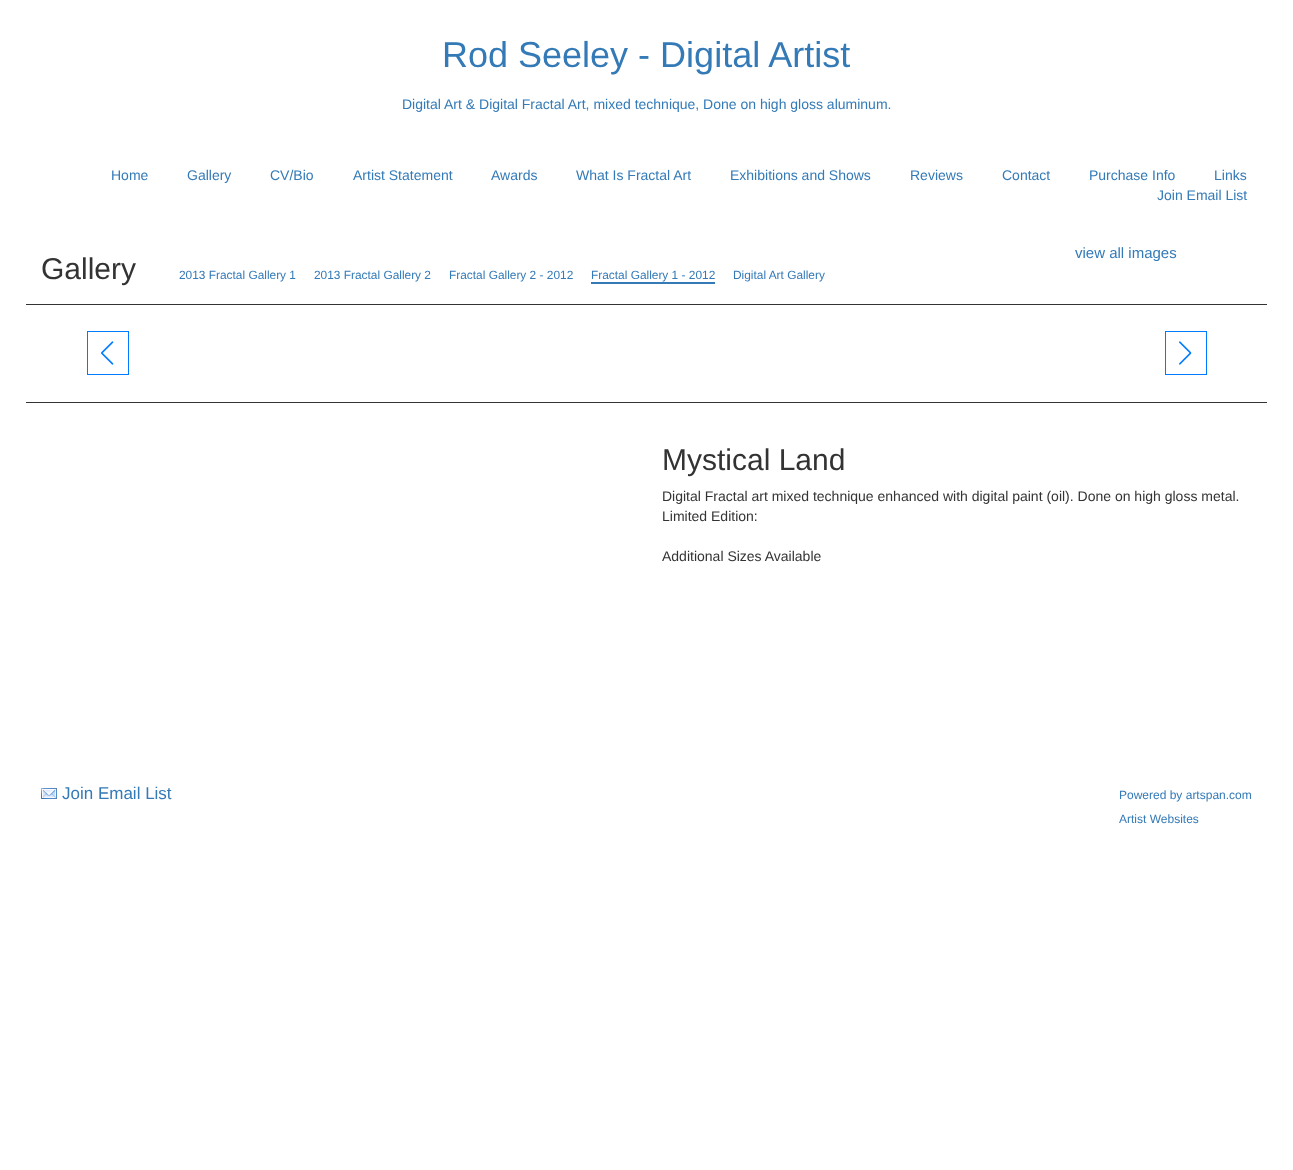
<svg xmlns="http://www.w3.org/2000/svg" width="1293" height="1170">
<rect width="100%" height="100%" fill="#fff"/>
<text x="442" y="67" style="font-family:Liberation Sans;font-size:36px;fill:#337ab7">Rod Seeley - Digital Artist</text>
<text x="402" y="109" style="font-family:Liberation Sans;font-size:14px;fill:#337ab7">Digital Art &amp; Digital Fractal Art, mixed technique, Done on high gloss aluminum.</text>
<text x="111" y="180" style="font-family:Liberation Sans;font-size:14px;fill:#337ab7">Home</text>
<text x="187" y="180" style="font-family:Liberation Sans;font-size:14px;fill:#337ab7">Gallery</text>
<text x="270" y="180" style="font-family:Liberation Sans;font-size:14px;fill:#337ab7">CV/Bio</text>
<text x="353" y="180" style="font-family:Liberation Sans;font-size:14px;fill:#337ab7">Artist Statement</text>
<text x="491" y="180" style="font-family:Liberation Sans;font-size:14px;fill:#337ab7">Awards</text>
<text x="576" y="180" style="font-family:Liberation Sans;font-size:14px;fill:#337ab7">What Is Fractal Art</text>
<text x="730" y="180" style="font-family:Liberation Sans;font-size:14px;fill:#337ab7">Exhibitions and Shows</text>
<text x="910" y="180" style="font-family:Liberation Sans;font-size:14px;fill:#337ab7">Reviews</text>
<text x="1002" y="180" style="font-family:Liberation Sans;font-size:14px;fill:#337ab7">Contact</text>
<text x="1089" y="180" style="font-family:Liberation Sans;font-size:14px;fill:#337ab7">Purchase Info</text>
<text x="1214" y="180" style="font-family:Liberation Sans;font-size:14px;fill:#337ab7">Links</text>
<text x="1157" y="200" style="font-family:Liberation Sans;font-size:14px;fill:#337ab7">Join Email List</text>
<text x="1075" y="258" style="font-family:Liberation Sans;font-size:15px;fill:#337ab7">view all images</text>
<text x="41" y="279" style="font-family:Liberation Sans;font-size:30px;fill:#333">Gallery</text>
<text x="179" y="279" style="font-family:Liberation Sans;font-size:11.9px;fill:#337ab7">2013 Fractal Gallery 1</text>
<text x="314" y="279" style="font-family:Liberation Sans;font-size:11.9px;fill:#337ab7">2013 Fractal Gallery 2</text>
<text x="449" y="279" style="font-family:Liberation Sans;font-size:11.9px;fill:#337ab7">Fractal Gallery 2 - 2012</text>
<rect x="591" y="282" width="124" height="2" fill="#337ab7"/>
<text x="591" y="279" style="font-family:Liberation Sans;font-size:11.9px;fill:#337ab7">Fractal Gallery 1 - 2012</text>
<text x="733" y="279" style="font-family:Liberation Sans;font-size:11.9px;fill:#337ab7">Digital Art Gallery</text>
<rect x="26" y="304" width="1241" height="1" fill="#333"/>
<rect x="26" y="402" width="1241" height="1" fill="#333"/>
<rect x="87.5" y="331.5" width="41" height="43" fill="none" stroke="#007aff"/>
<image x="101" y="341" width="13" height="24" href="media/1.png"/>
<rect x="1165.5" y="331.5" width="41" height="43" fill="none" stroke="#007aff"/>
<image x="1179" y="341" width="13" height="24" href="media/2.png"/>
<text x="662" y="470" style="font-family:Liberation Sans;font-size:30px;fill:#333">Mystical Land</text>
<text x="662" y="501" style="font-family:Liberation Sans;font-size:14px;fill:#333">Digital Fractal art mixed technique enhanced with digital paint (oil). Done on high gloss metal.</text>
<text x="662" y="521" style="font-family:Liberation Sans;font-size:14px;fill:#333">Limited Edition:</text>
<text x="662" y="561" style="font-family:Liberation Sans;font-size:14px;fill:#333">Additional Sizes Available</text>
<image x="41" y="788" width="16" height="11" href="media/3.png"/>
<text x="62" y="799" style="font-family:Liberation Sans;font-size:17px;fill:#337ab7">Join Email List</text>
<text x="1119" y="799" style="font-family:Liberation Sans;font-size:12px;fill:#337ab7">Powered by artspan.com</text>
<text x="1119" y="823" style="font-family:Liberation Sans;font-size:12px;fill:#337ab7">Artist Websites</text>
</svg>
